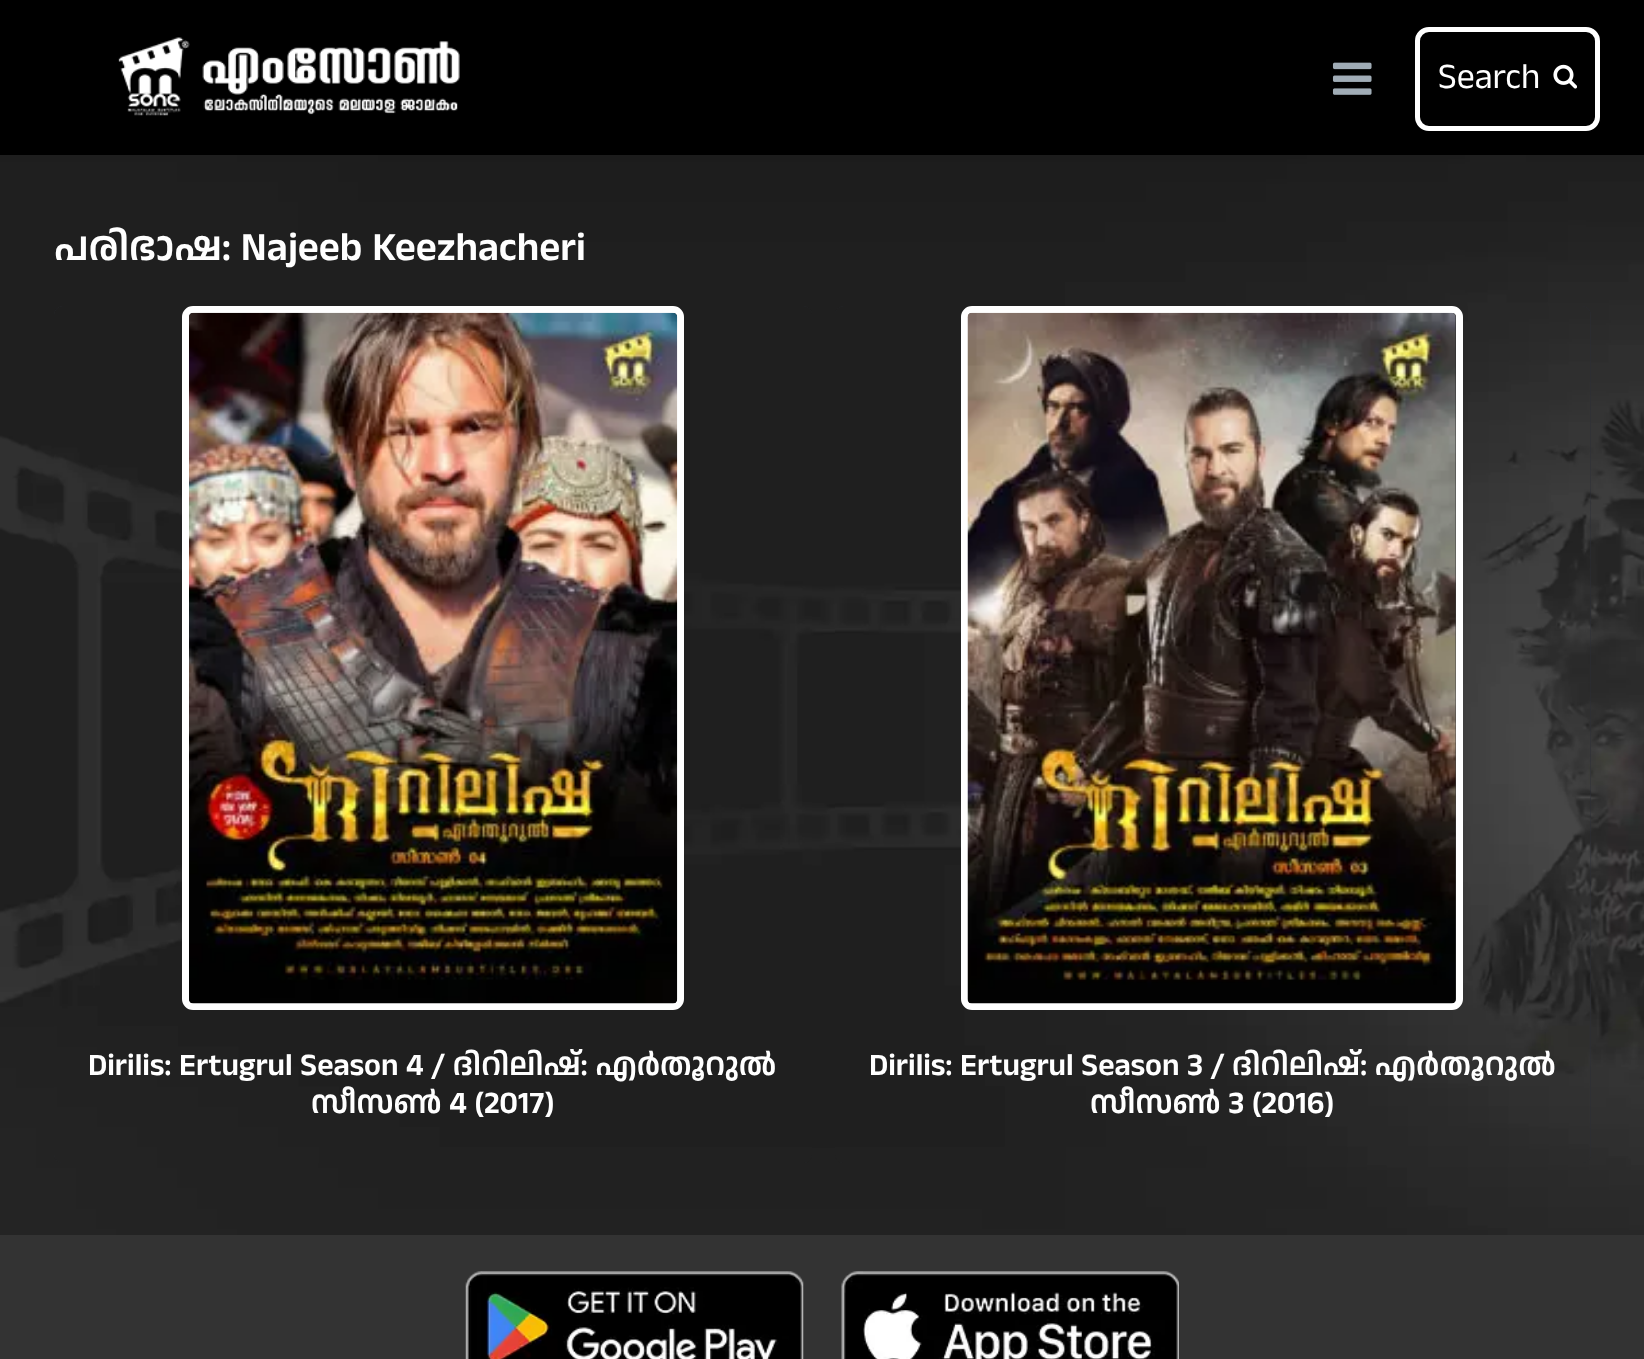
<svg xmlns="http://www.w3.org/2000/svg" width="1644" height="1359">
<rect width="100%" height="100%" fill="#fff"/>
<image x="0" y="155" width="1644" height="1080" href="media/1.png"/>
<rect width="1644" height="155" fill="#000"/>
<image x="118" y="37" width="342" height="79" href="media/2.png"/>
<image x="1332" y="62" width="40" height="33" href="media/3.png"/>
<rect x="1417.5" y="29.5" width="180" height="99" rx="11.5" fill="none" stroke="#fff" stroke-width="5"/>
<text x="1438" y="88" style="font-family:Anek Malayalam;font-size:36px;fill:#fff">Search</text>
<image x="1553" y="64" width="24" height="25" href="media/4.png"/>
<text x="54" y="260" style="font-family:Anek Malayalam;font-size:40.5px;font-weight:600;fill:#fff">പരിഭാഷ: Najeeb Keezhacheri</text>
<rect x="54" y="306" width="758" height="857" rx="9" fill="#2d2f37"/>
<image x="54" y="306" width="758" height="857" href="media/5.png"/>
<rect x="185.5" y="309.5" width="495" height="697" rx="7.5" fill="none" stroke="#fff" stroke-width="7"/>
<image x="189" y="312" width="489" height="692" href="media/6.png"/>
<text x="88" y="1075" style="font-family:Anek Malayalam;font-size:31.5px;font-weight:600;fill:#fff">Dirilis: Ertugrul Season 4 / ദിറിലിഷ്: എർതൂറുൽ</text>
<text x="311" y="1113" style="font-family:Anek Malayalam;font-size:31.5px;font-weight:600;fill:#fff">സീസൺ 4 (2017)</text>
<rect x="835" y="306" width="756" height="857" rx="9" fill="#2d2f37"/>
<image x="835" y="306" width="756" height="857" href="media/7.png"/>
<rect x="964.5" y="309.5" width="495" height="697" rx="7.5" fill="none" stroke="#fff" stroke-width="7"/>
<image x="967" y="312" width="489" height="692" href="media/8.png"/>
<text x="869" y="1075" style="font-family:Anek Malayalam;font-size:31.5px;font-weight:600;fill:#fff">Dirilis: Ertugrul Season 3 / ദിറിലിഷ്: എർതൂറുൽ</text>
<text x="1090" y="1113" style="font-family:Anek Malayalam;font-size:31.5px;font-weight:600;fill:#fff">സീസൺ 3 (2016)</text>
<rect y="1235" width="1644" height="124" fill="#333"/>
<image x="465" y="1271" width="339" height="88" href="media/9.png"/>
<image x="841" y="1271" width="338" height="88" href="media/10.png"/>
</svg>
